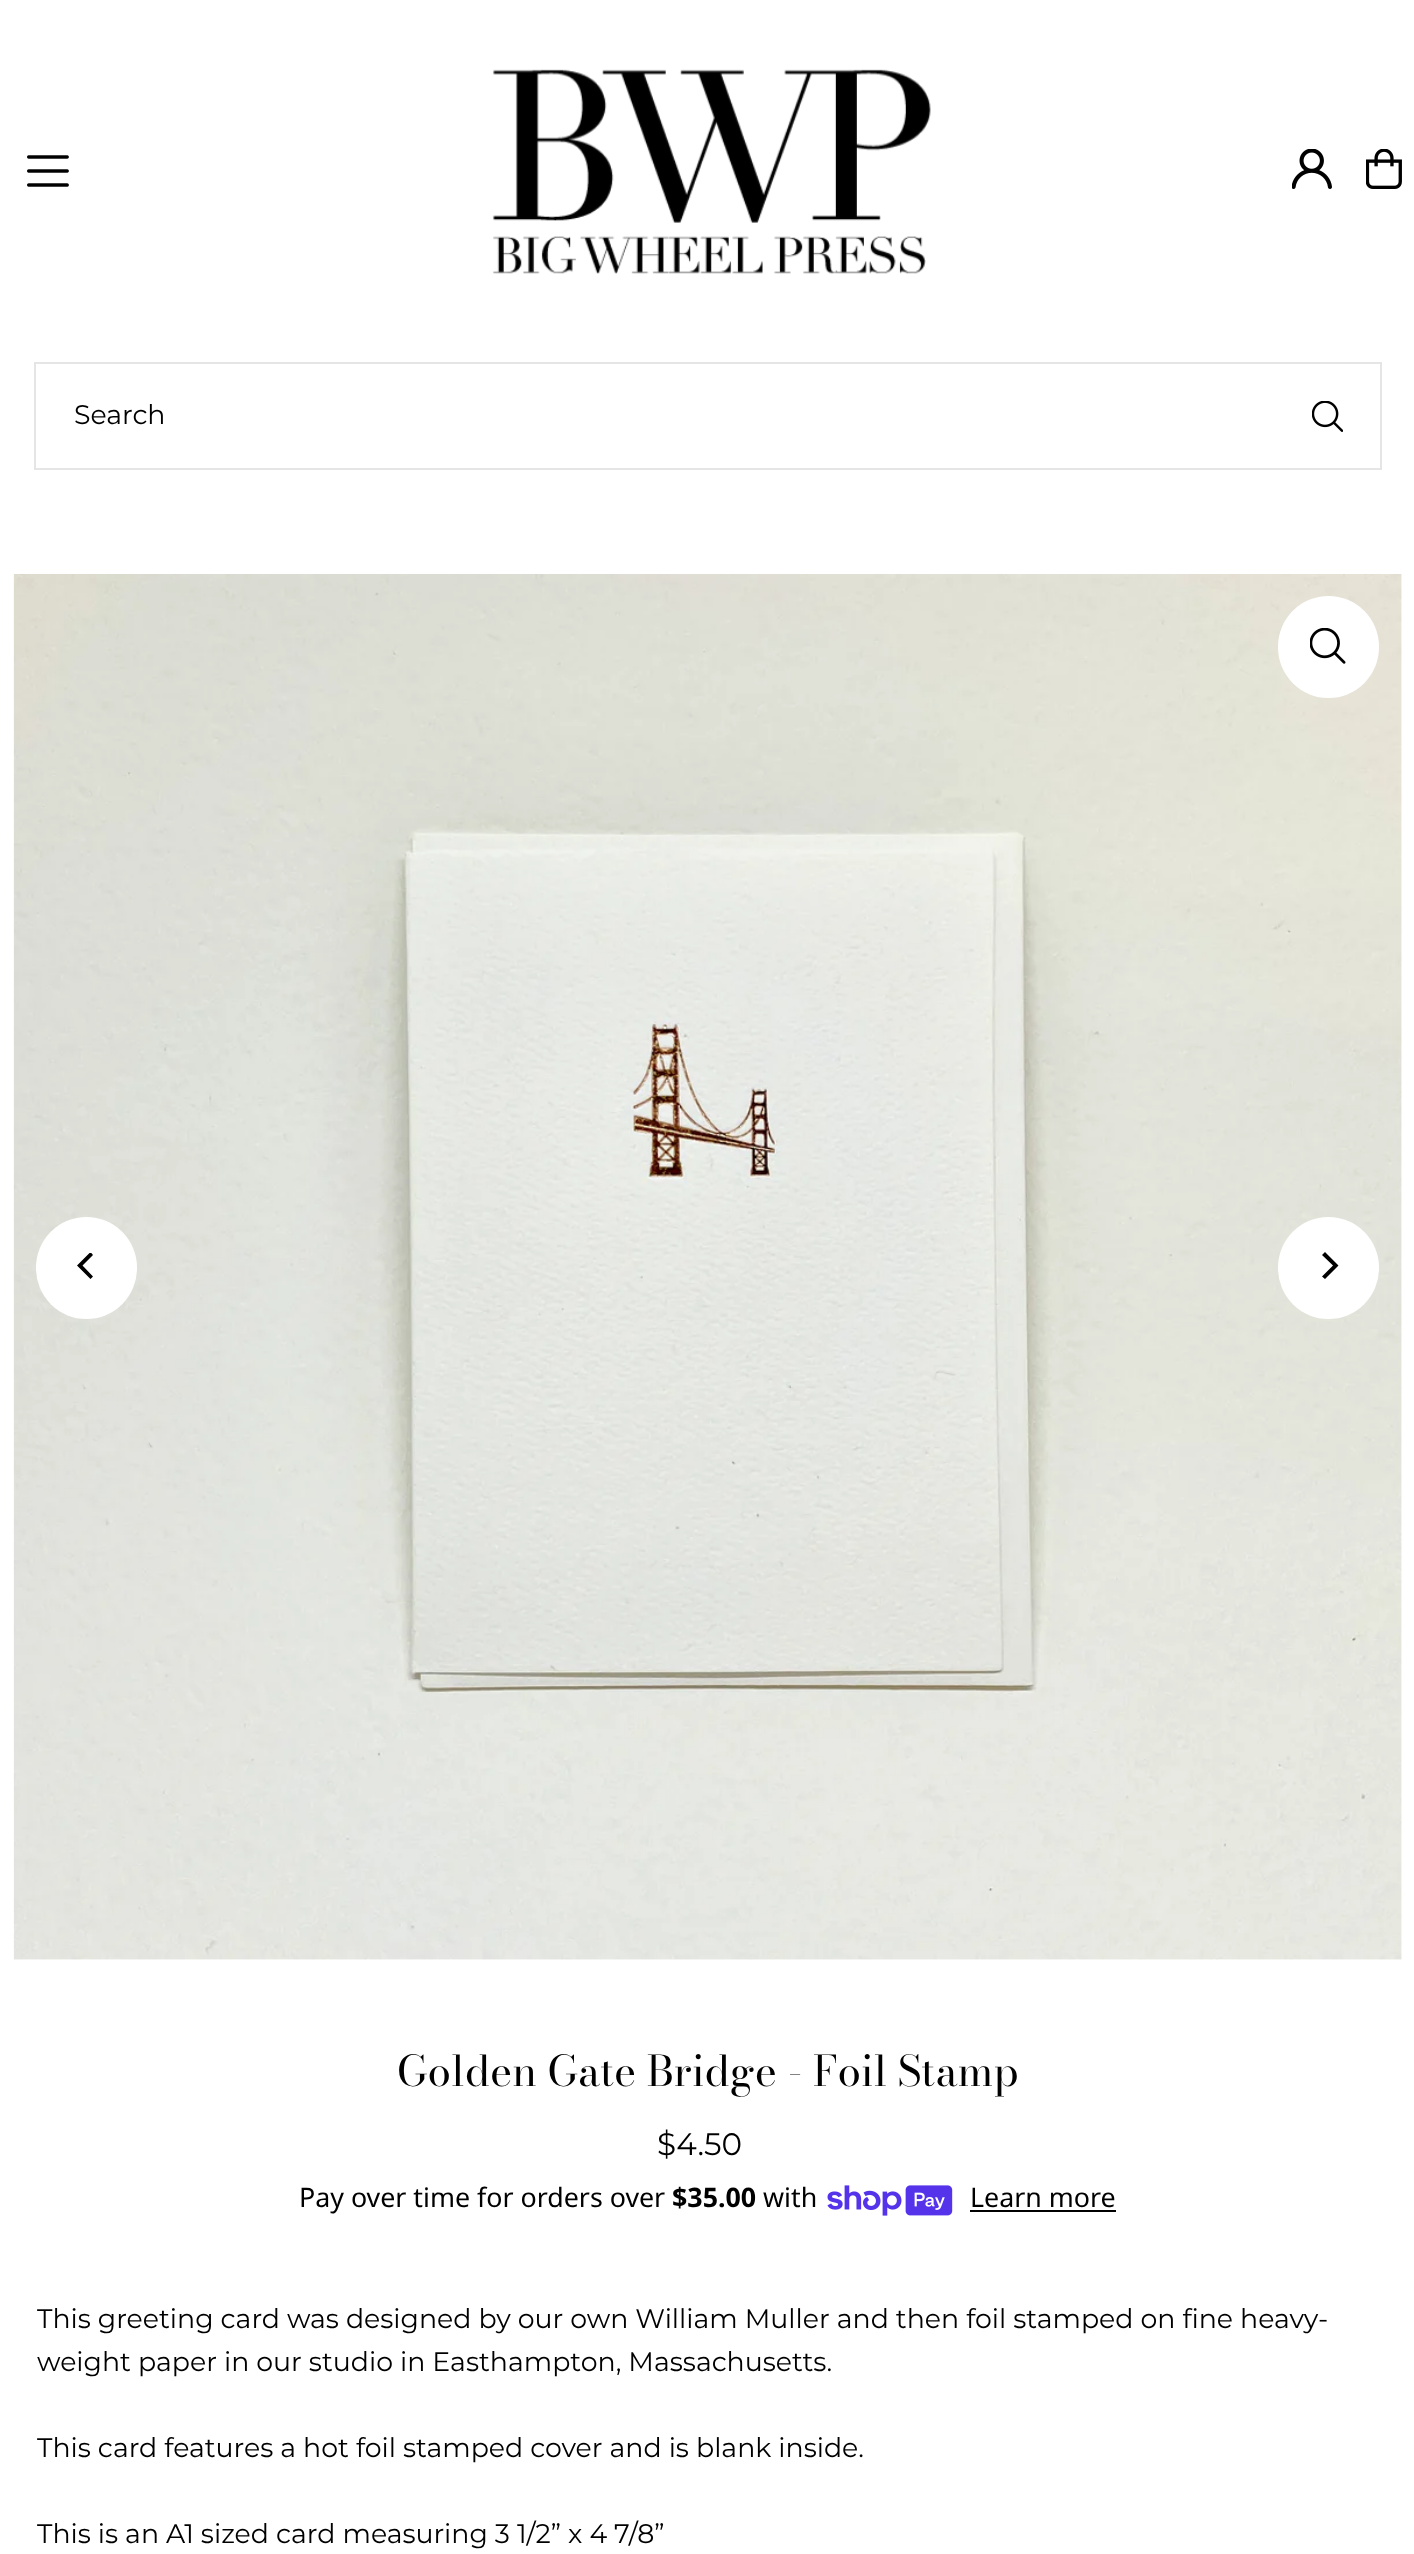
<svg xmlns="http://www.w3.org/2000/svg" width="1414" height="2554">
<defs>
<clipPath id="clip1"><rect x="74" y="1253" width="27" height="27"/></clipPath>
</defs>
<rect width="100%" height="100%" fill="#fff"/>
<image x="27" y="155" width="42" height="32" href="media/1.png"/>
<image x="492" y="69" width="439" height="205" href="media/2.png"/>
<image x="1292" y="149" width="40" height="40" href="media/3.png"/>
<image x="1366" y="149" width="36" height="40" href="media/4.png"/>
<rect x="35" y="363" width="1346" height="106" fill="none" stroke="#e5e5e5" stroke-width="2"/>
<text x="74" y="424" style="font-family:Montserrat;font-size:26.8px;fill:#000">Search</text>
<image x="1312" y="401" width="31" height="31" href="media/5.png"/>
<image x="13" y="574" width="1389" height="1386" href="media/6.png"/>
<rect x="1278" y="596" width="101" height="102" rx="50.5" fill="#fff"/>
<image x="1310" y="628" width="36" height="36" href="media/7.png"/>
<rect x="36" y="1217" width="101" height="102" rx="50.5" fill="#fff"/>
<g clip-path="url(#clip1)">
<path d="M77 1265.5l13.5 13.5l2.5-2.5l-10.5-11l10.5-10.5l-2.5-3z" fill="#000"/>
</g>
<rect x="1278" y="1217" width="101" height="102" rx="50.5" fill="#fff"/>
<path d="M1338.5 1265.5l-13.5-13.5l-3 3l11 10.5l-11 11l3 2.5z" fill="#000"/>
<text x="397" y="2086" style="font-family:Bodoni Moda;font-size:42.1px;fill:#000">Golden Gate Bridge - Foil Stamp</text>
<text x="657" y="2155" style="font-family:Montserrat;font-size:31px;fill:#000">$4.50</text>
<text x="299" y="2207" style="font-family:Noto Sans;font-size:26.8px;fill:#000">Pay over time for orders over</text>
<text x="672" y="2207" style="font-family:Noto Sans;font-size:26.8px;font-weight:bold;fill:#000">$35.00</text>
<text x="763" y="2207" style="font-family:Noto Sans;font-size:26.8px;fill:#000">with</text>
<image x="827" y="2185" width="126" height="31" href="media/8.png"/>
<text x="970" y="2207" style="font-family:Noto Sans;font-size:26.8px;fill:#000">Learn more</text>
<rect x="970" y="2210" width="146" height="2" fill="#000"/>
<text x="37" y="2328" style="font-family:Montserrat;font-size:26.8px;fill:#000">This greeting card was designed by our own William Muller and then foil stamped on fine heavy-</text>
<text x="37" y="2371" style="font-family:Montserrat;font-size:26.8px;fill:#000">weight paper in our studio in Easthampton, Massachusetts.</text>
<text x="37" y="2457" style="font-family:Montserrat;font-size:26.8px;fill:#000">This card features a hot foil stamped cover and is blank inside.</text>
<text x="37" y="2543" style="font-family:Montserrat;font-size:26.8px;fill:#000">This is an A1 sized card measuring 3 1/2” x 4 7/8”</text>
</svg>
